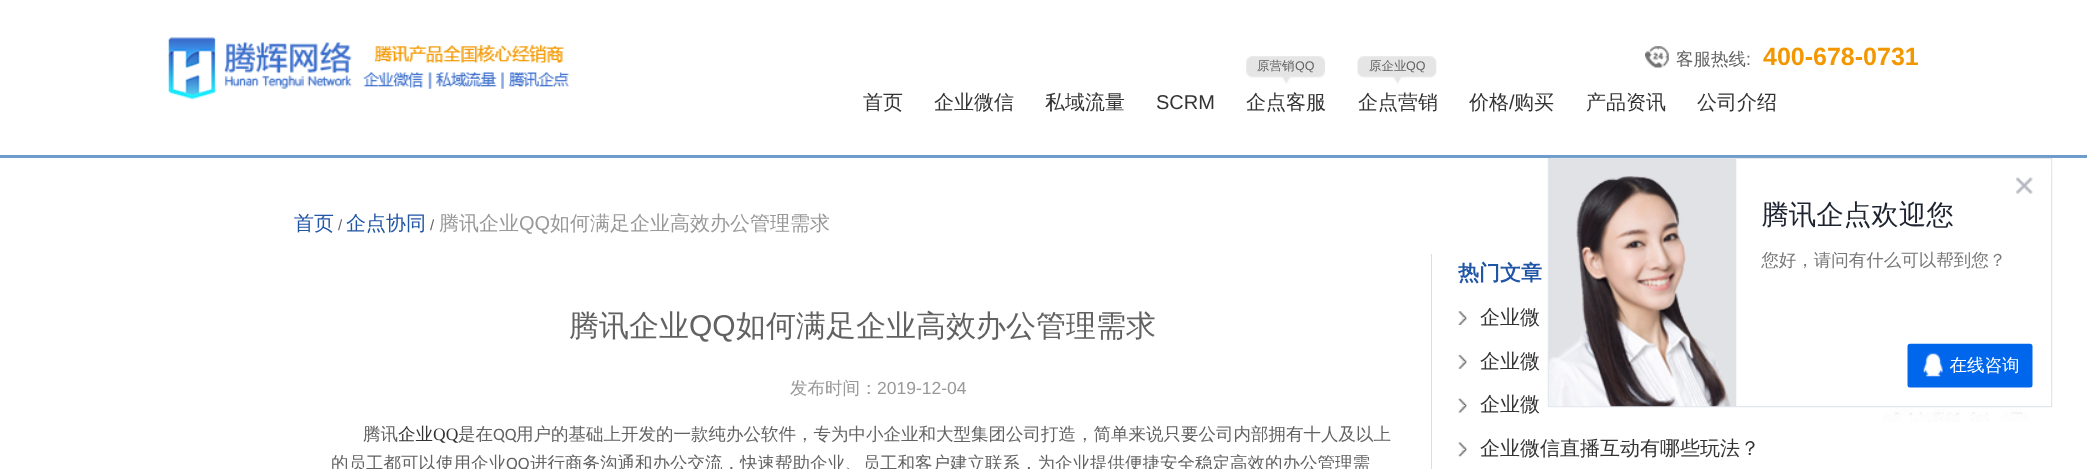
<svg xmlns="http://www.w3.org/2000/svg" width="2087" height="469">
<rect width="100%" height="100%" fill="#fff"/>
<rect y="155" width="2087" height="3" fill="#6e9dcb"/>
<image x="168" y="37" width="401" height="62" href="media/1.png"/>
<text x="863" y="109" style="font-family:WenQuanYi Zen Hei;font-size:20px;font-weight:500;fill:#333">首页</text>
<text x="934" y="109" style="font-family:WenQuanYi Zen Hei;font-size:20px;font-weight:500;fill:#333">企业微信</text>
<text x="1045" y="109" style="font-family:WenQuanYi Zen Hei;font-size:20px;font-weight:500;fill:#333">私域流量</text>
<text x="1156" y="109" style="font-family:Liberation Sans;font-size:20px;fill:#333">SCRM</text>
<image x="1246" y="56" width="79" height="28" href="media/2.png"/>
<text x="1257" y="70" style="font-family:WenQuanYi Zen Hei;font-size:12.5px;font-weight:500;fill:#626262">原营销</text>
<text x="1295" y="70" style="font-family:Liberation Sans;font-size:12.5px;fill:#626262">QQ</text>
<text x="1246" y="109" style="font-family:WenQuanYi Zen Hei;font-size:20px;font-weight:500;fill:#333">企点客服</text>
<image x="1357" y="56" width="80" height="28" href="media/3.png"/>
<text x="1369" y="70" style="font-family:WenQuanYi Zen Hei;font-size:12.5px;font-weight:500;fill:#626262">原企业</text>
<text x="1406" y="70" style="font-family:Liberation Sans;font-size:12.5px;fill:#626262">QQ</text>
<text x="1358" y="109" style="font-family:WenQuanYi Zen Hei;font-size:20px;font-weight:500;fill:#333">企点营销</text>
<text x="1469" y="109" style="font-family:WenQuanYi Zen Hei;font-size:20px;font-weight:500;fill:#333">价格</text>
<text x="1509" y="109" style="font-family:Liberation Sans;font-size:20px;fill:#333">/</text>
<text x="1514" y="109" style="font-family:WenQuanYi Zen Hei;font-size:20px;font-weight:500;fill:#333">购买</text>
<text x="1586" y="109" style="font-family:WenQuanYi Zen Hei;font-size:20px;font-weight:500;fill:#333">产品资讯</text>
<text x="1697" y="109" style="font-family:WenQuanYi Zen Hei;font-size:20px;font-weight:500;fill:#333">公司介绍</text>
<image x="1645" y="46" width="24" height="22" href="media/4.png"/>
<text x="1676" y="65" style="font-family:WenQuanYi Zen Hei;font-size:17.5px;font-weight:500;fill:#626262">客服热线</text>
<text x="1746" y="65" style="font-family:Liberation Sans;font-size:17.5px;fill:#626262">:</text>
<text x="1763" y="65" style="font-family:Liberation Sans;font-size:25px;font-weight:bold;fill:#f39700">400-678-0731</text>
<text x="294" y="230" style="font-family:WenQuanYi Zen Hei;font-size:20px;font-weight:500;fill:#2155a6">首页</text>
<text x="338" y="230" style="font-family:Liberation Sans;font-size:15px;fill:#626262">/</text>
<text x="346" y="230" style="font-family:WenQuanYi Zen Hei;font-size:20px;font-weight:500;fill:#2155a6">企点协同</text>
<text x="430" y="230" style="font-family:Liberation Sans;font-size:15px;fill:#626262">/</text>
<text x="439" y="230" style="font-family:WenQuanYi Zen Hei;font-size:20px;font-weight:500;fill:#999">腾讯企业</text>
<text x="519" y="230" style="font-family:Liberation Sans;font-size:20px;fill:#999">QQ</text>
<text x="550" y="230" style="font-family:WenQuanYi Zen Hei;font-size:20px;font-weight:500;fill:#999">如何满足企业高效办公管理需求</text>
<rect x="1431" y="254" width="1" height="215" fill="#ddd"/>
<text x="569" y="336" style="font-family:WenQuanYi Zen Hei;font-size:30px;font-weight:500;fill:#626262">腾讯企业</text>
<text x="689" y="336" style="font-family:Liberation Sans;font-size:30px;fill:#626262">QQ</text>
<text x="736" y="336" style="font-family:WenQuanYi Zen Hei;font-size:30px;font-weight:500;fill:#626262">如何满足企业高效办公管理需求</text>
<text x="790" y="394" style="font-family:WenQuanYi Zen Hei;font-size:17.5px;font-weight:500;fill:#999">发布时间：</text>
<text x="877" y="394" style="font-family:Liberation Sans;font-size:17.5px;fill:#999">2019-12-04</text>
<text x="363" y="440" style="font-family:WenQuanYi Zen Hei;font-size:17.5px;font-weight:500;fill:#626262">腾讯</text>
<text x="398" y="440" style="font-family:WenQuanYi Zen Hei;font-size:17.5px;font-weight:500;fill:#333">企业</text>
<text x="433" y="440" style="font-family:Liberation Serif;font-size:17.5px;fill:#333">QQ</text>
<text x="458" y="440" style="font-family:WenQuanYi Zen Hei;font-size:17.5px;font-weight:500;fill:#626262">是在</text>
<text x="493" y="440" style="font-family:Carlito;font-size:17.5px;fill:#626262">QQ</text>
<text x="516" y="440" style="font-family:WenQuanYi Zen Hei;font-size:17.5px;font-weight:500;fill:#626262">用户的基础上开发的一款纯办公软件，专为中小企业和大型集团公司打造，简单来说只要公司内部拥有十人及以上</text>
<text x="331" y="469" style="font-family:WenQuanYi Zen Hei;font-size:17.5px;font-weight:500;fill:#626262">的员工都可以使用企业</text>
<text x="506" y="469" style="font-family:Carlito;font-size:17.5px;fill:#626262">QQ</text>
<text x="530" y="469" style="font-family:WenQuanYi Zen Hei;font-size:17.5px;font-weight:500;fill:#626262">进行商务沟通和办公交流，快速帮助企业、员工和客户建立联系，为企业提供便捷安全稳定高效的办公管理需</text>
<text x="1458" y="280" style="font-family:WenQuanYi Zen Hei;font-size:21px;font-weight:bold;fill:#2155a6">热门文章</text>
<image x="1458" y="311" width="9" height="14" href="media/5.png"/>
<text x="1480" y="324" style="font-family:WenQuanYi Zen Hei;font-size:20px;font-weight:500;fill:#333">企业微</text>
<image x="1458" y="354" width="9" height="15" href="media/6.png"/>
<text x="1480" y="368" style="font-family:WenQuanYi Zen Hei;font-size:20px;font-weight:500;fill:#333">企业微</text>
<image x="1458" y="398" width="9" height="15" href="media/7.png"/>
<text x="1480" y="411" style="font-family:WenQuanYi Zen Hei;font-size:20px;font-weight:500;fill:#333">企业微</text>
<image x="1458" y="442" width="9" height="15" href="media/8.png"/>
<text x="1480" y="455" style="font-family:WenQuanYi Zen Hei;font-size:20px;font-weight:500;fill:#333">企业微信直播互动有哪些玩法？</text>
<image x="1883" y="407" width="159" height="15" href="media/10.png"/>
<image x="1547" y="157" width="506" height="251" href="media/9.png"/>
</svg>
